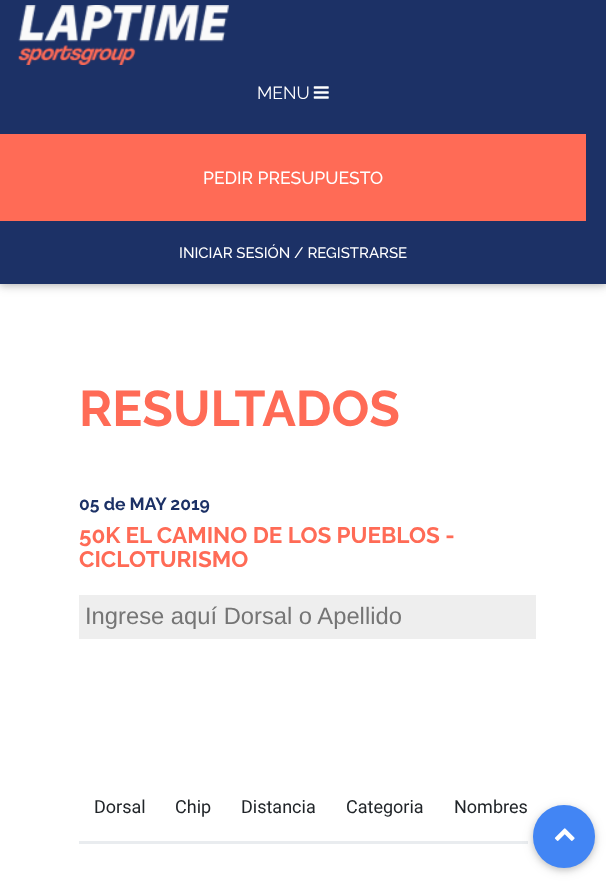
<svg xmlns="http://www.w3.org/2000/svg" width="606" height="886">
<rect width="100%" height="100%" fill="#fff"/>
<rect y="3" width="606" height="283" fill="#0000001f" filter="blur(6px)"/>
<rect y="3" width="606" height="283" fill="#00000029" filter="blur(3px)"/>
<rect width="606" height="284" fill="#1c3166"/>
<image x="18" y="5" width="211" height="60" href="media/1.png"/>
<text x="257" y="99" style="font-family:Raleway;font-size:17.5px;fill:#fff">MENU</text>
<image x="313" y="86" width="16" height="13" href="media/2.png"/>
<rect y="134" width="586" height="87" fill="#ff6b56"/>
<text x="203" y="184" style="font-family:Raleway;font-size:17.5px;font-weight:500;fill:#fff">PEDIR PRESUPUESTO</text>
<text x="179" y="258" style="font-family:Raleway;font-size:15px;font-weight:500;fill:#fff">INICIAR SESIÓN / REGISTRARSE</text>
<text x="79" y="426" style="font-family:Raleway;font-size:50px;font-weight:bold;fill:#ff6b56">RESULTADOS</text>
<text x="79" y="510" style="font-family:Raleway;font-size:17.5px;font-weight:bold;fill:#1c3166">05 de MAY 2019</text>
<text x="79" y="543" style="font-family:Raleway;font-size:22.5px;font-weight:bold;fill:#ff6b56">50K EL CAMINO DE LOS PUEBLOS -</text>
<text x="79" y="567" style="font-family:Raleway;font-size:22.5px;font-weight:bold;fill:#ff6b56">CICLOTURISMO</text>
<rect x="79" y="595" width="457" height="44" fill="#eee"/>
<text x="85" y="624" style="font-family:Liberation Sans;font-size:23.75px;fill:#757575">Ingrese aquí Dorsal o Apellido</text>
<text x="94" y="813" style="font-family:Roboto;font-size:18px;fill:#212529">Dorsal</text>
<text x="175" y="813" style="font-family:Roboto;font-size:18px;fill:#212529">Chip</text>
<text x="241" y="813" style="font-family:Roboto;font-size:18px;fill:#212529">Distancia</text>
<text x="346" y="813" style="font-family:Roboto;font-size:18px;fill:#212529">Categoria</text>
<rect x="79" y="841" width="449" height="3" fill="#e9ecef"/>
<text x="454" y="813" style="font-family:Roboto;font-size:18px;fill:#212529">Nombres</text>
<rect x="533" y="808" width="62" height="62" rx="31" fill="#0000001f" filter="blur(6px)"/>
<rect x="533" y="808" width="62" height="62" rx="31" fill="#00000029" filter="blur(3px)"/>
<rect x="533" y="805" width="62" height="63" rx="31" fill="#4285f4"/>
<image x="554" y="828" width="21" height="13" href="media/3.png"/>
</svg>
